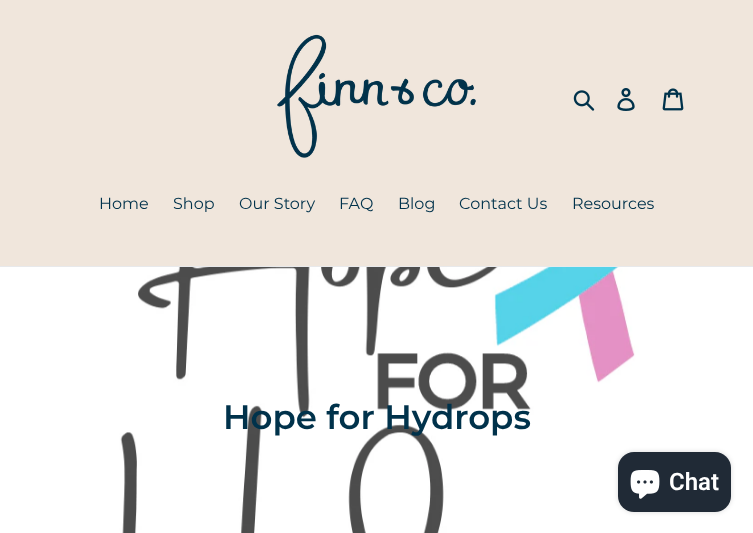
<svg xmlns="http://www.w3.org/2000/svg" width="753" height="533">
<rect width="100%" height="100%" fill="#f0e6dc"/>
<image x="277" y="34" width="199" height="124" href="media/1.png"/>
<image x="573" y="90" width="22" height="21" href="media/2.png"/>
<image x="617" y="88" width="18" height="23" href="media/3.png"/>
<image x="662" y="88" width="22" height="23" href="media/4.png"/>
<rect y="266" width="753" height="1" fill="#e8e9eb"/>
<text x="99" y="209" style="font-family:Montserrat;font-size:16px;fill:#00324b">Home</text>
<text x="173" y="209" style="font-family:Montserrat;font-size:16px;fill:#00324b">Shop</text>
<text x="239" y="209" style="font-family:Montserrat;font-size:16px;fill:#00324b">Our Story</text>
<text x="339" y="209" style="font-family:Montserrat;font-size:16px;fill:#00324b">FAQ</text>
<text x="398" y="209" style="font-family:Montserrat;font-size:16px;fill:#00324b">Blog</text>
<text x="459" y="209" style="font-family:Montserrat;font-size:16px;fill:#00324b">Contact Us</text>
<text x="572" y="209" style="font-family:Montserrat;font-size:16px;fill:#00324b">Resources</text>
<image x="0" y="267" width="753" height="266" href="media/5.png"/>
<text x="223" y="429" style="font-family:Montserrat;font-size:34px;font-weight:600;fill:#00324b">Hope for Hydrops</text>
<rect x="618" y="452" width="113" height="60" rx="16" fill="#00000026" filter="blur(2.5px)"/>
<rect x="618" y="452" width="113" height="60" rx="16" fill="#202a36"/>
<image x="630" y="470" width="30" height="29" href="media/6.png"/>
<text x="669" y="490" style="font-family:Roboto;font-size:24px;font-weight:600;fill:#fff">Chat</text>
</svg>
